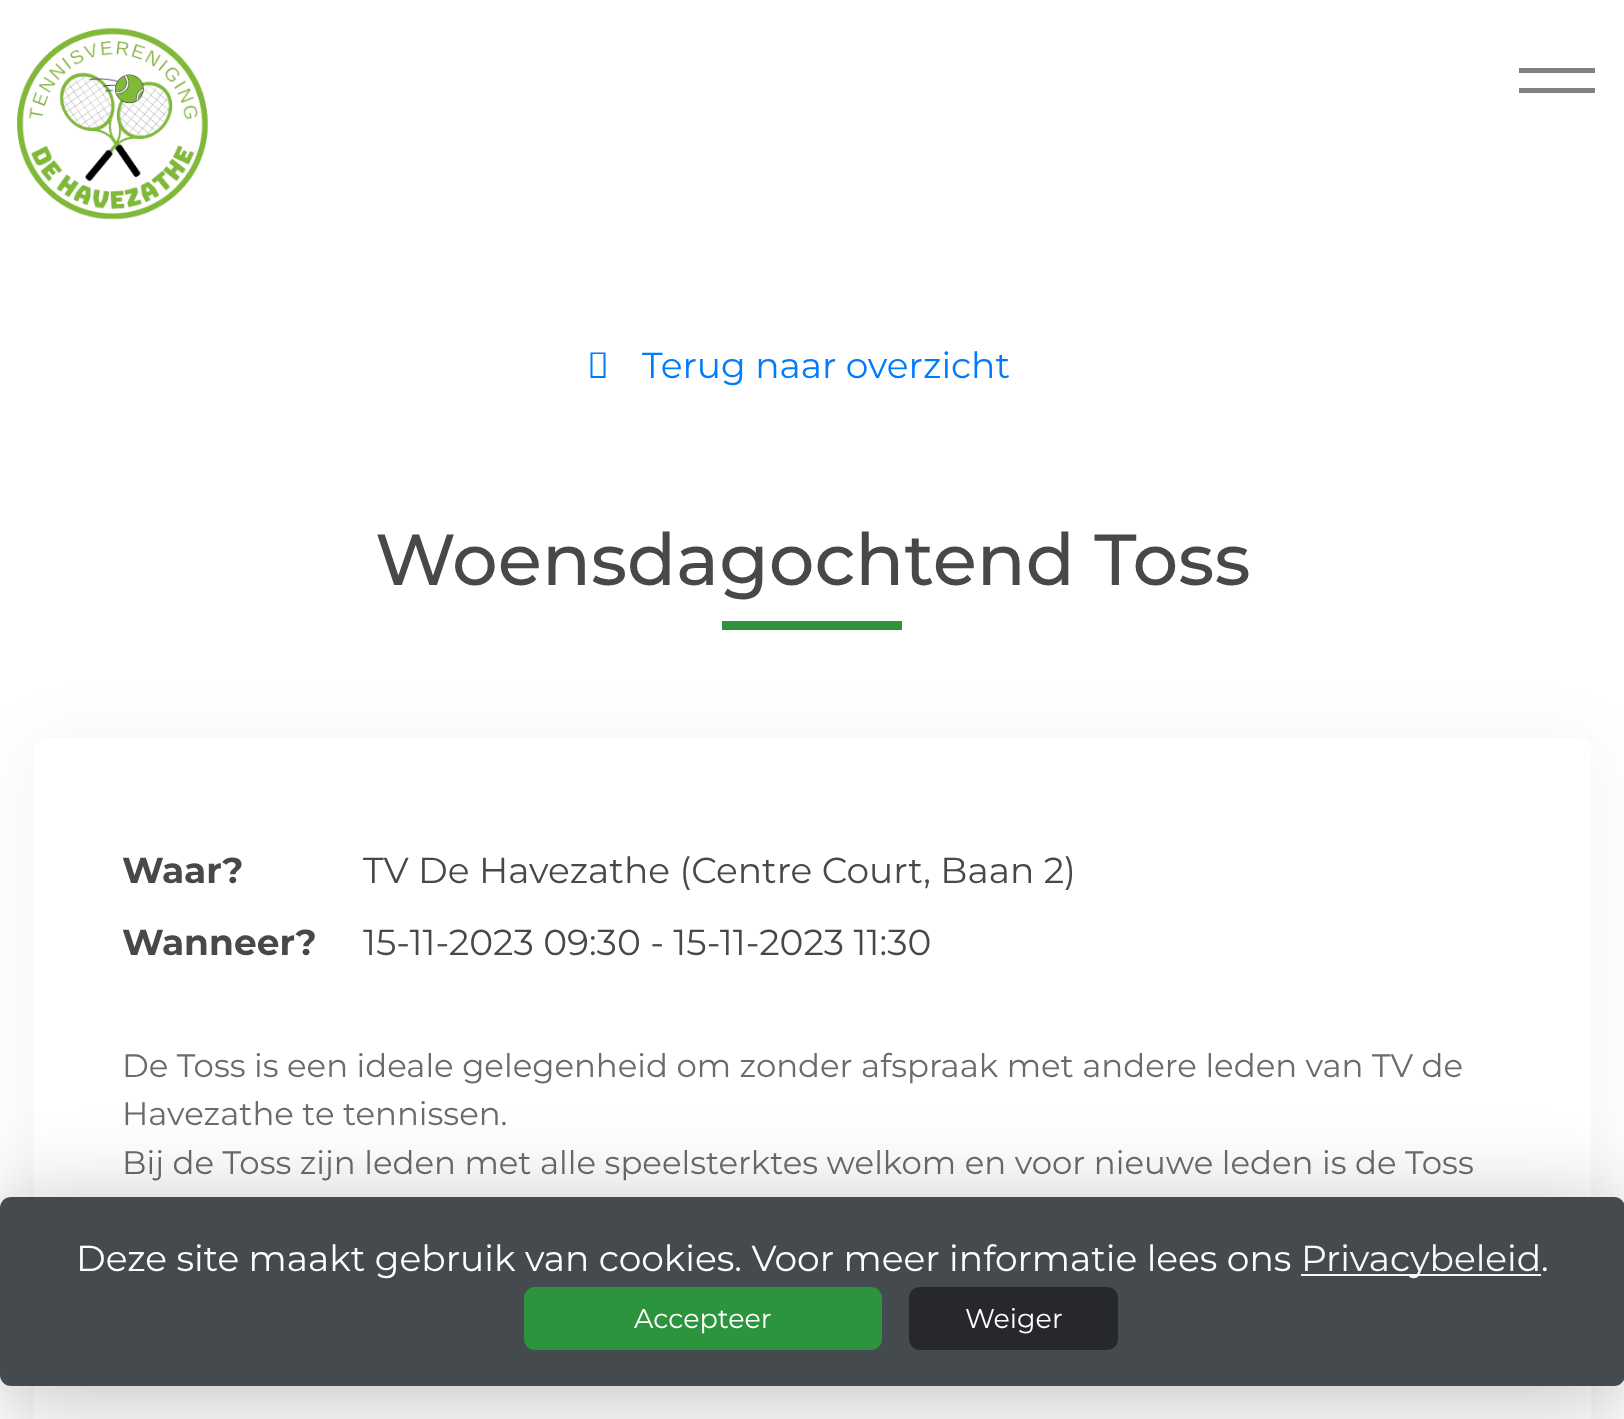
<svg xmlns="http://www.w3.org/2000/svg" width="1624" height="1419">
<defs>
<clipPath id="clip1"><path d="M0 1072h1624v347h-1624zm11 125h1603c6 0 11 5 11 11v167c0 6-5 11-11 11h-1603c-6 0-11-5-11-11v-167c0-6 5-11 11-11z" clip-rule="evenodd"/></clipPath>
</defs>
<rect width="100%" height="100%" fill="#fff"/>
<image x="17" y="28" width="191" height="192" href="media/1.png"/>
<rect x="1519" y="68" width="76" height="5" fill="#808080"/>
<rect x="1519" y="88" width="76" height="5" fill="#808080"/>
<path d="M590.5 378v-25.5h15v25.5zm2-2h11v-22h-11z" fill="#007bff"/>
<text x="642" y="378" style="font-family:Montserrat;font-size:36px;fill:#007bff">Terug naar overzicht</text>
<text x="375" y="585" style="font-family:Montserrat;font-size:72px;font-weight:500;fill:#46484a">Woensdagochtend Toss</text>
<rect x="722" y="621" width="180" height="9" fill="#2c943c"/>
<rect x="34" y="745" width="1557" height="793" rx="11" fill="#0000000d" filter="blur(36px)"/>
<rect x="34" y="738" width="1557" height="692" rx="11" fill="#fff"/>
<text x="122" y="883" style="font-family:Montserrat;font-size:36px;font-weight:bold;fill:#46484a">Waar?</text>
<text x="363" y="883" style="font-family:Montserrat;font-size:36px;fill:#46484a">TV De Havezathe (Centre Court, Baan 2)</text>
<text x="122" y="955" style="font-family:Montserrat;font-size:36px;font-weight:bold;fill:#46484a">Wanneer?</text>
<text x="363" y="955" style="font-family:Montserrat;font-size:36px;fill:#46484a">15-11-2023 09:30 - 15-11-2023 11:30</text>
<text x="122" y="1077" style="font-family:Montserrat;font-size:32.4px;fill:#696b6e">De Toss is een ideale gelegenheid om zonder afspraak met andere leden van TV de</text>
<text x="122" y="1125" style="font-family:Montserrat;font-size:32.4px;fill:#696b6e">Havezathe te tennissen.</text>
<text x="122" y="1174" style="font-family:Montserrat;font-size:32.4px;fill:#696b6e">Bij de Toss zijn leden met alle speelsterktes welkom en voor nieuwe leden is de Toss</text>
<g clip-path="url(#clip1)">
<rect y="1208" width="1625" height="189" rx="11" fill="#00000040" filter="blur(45px)"/>
</g>
<rect y="1197" width="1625" height="189" rx="11" fill="#242a30d9"/>
<text x="76" y="1271" style="font-family:Montserrat;font-size:36px;fill:#fff">Deze site maakt gebruik van cookies. Voor meer informatie lees ons</text>
<rect x="1301" y="1274" width="240" height="2" fill="#f8f9fa"/>
<text x="1301" y="1271" style="font-family:Montserrat;font-size:36px;fill:#f8f9fa">Privacybeleid</text>
<text x="1541" y="1271" style="font-family:Montserrat;font-size:36px;fill:#fff">.</text>
<rect x="525" y="1288" width="356" height="61" rx="10" fill="#2c943c" stroke="#2c943c" stroke-width="2"/>
<text x="634" y="1328" style="font-family:Montserrat;font-size:27px;fill:#fff">Accepteer</text>
<rect x="910" y="1288" width="207" height="61" rx="10" fill="#26282e" stroke="#26282e" stroke-width="2"/>
<text x="965" y="1328" style="font-family:Montserrat;font-size:27px;fill:#fff">Weiger</text>
</svg>
